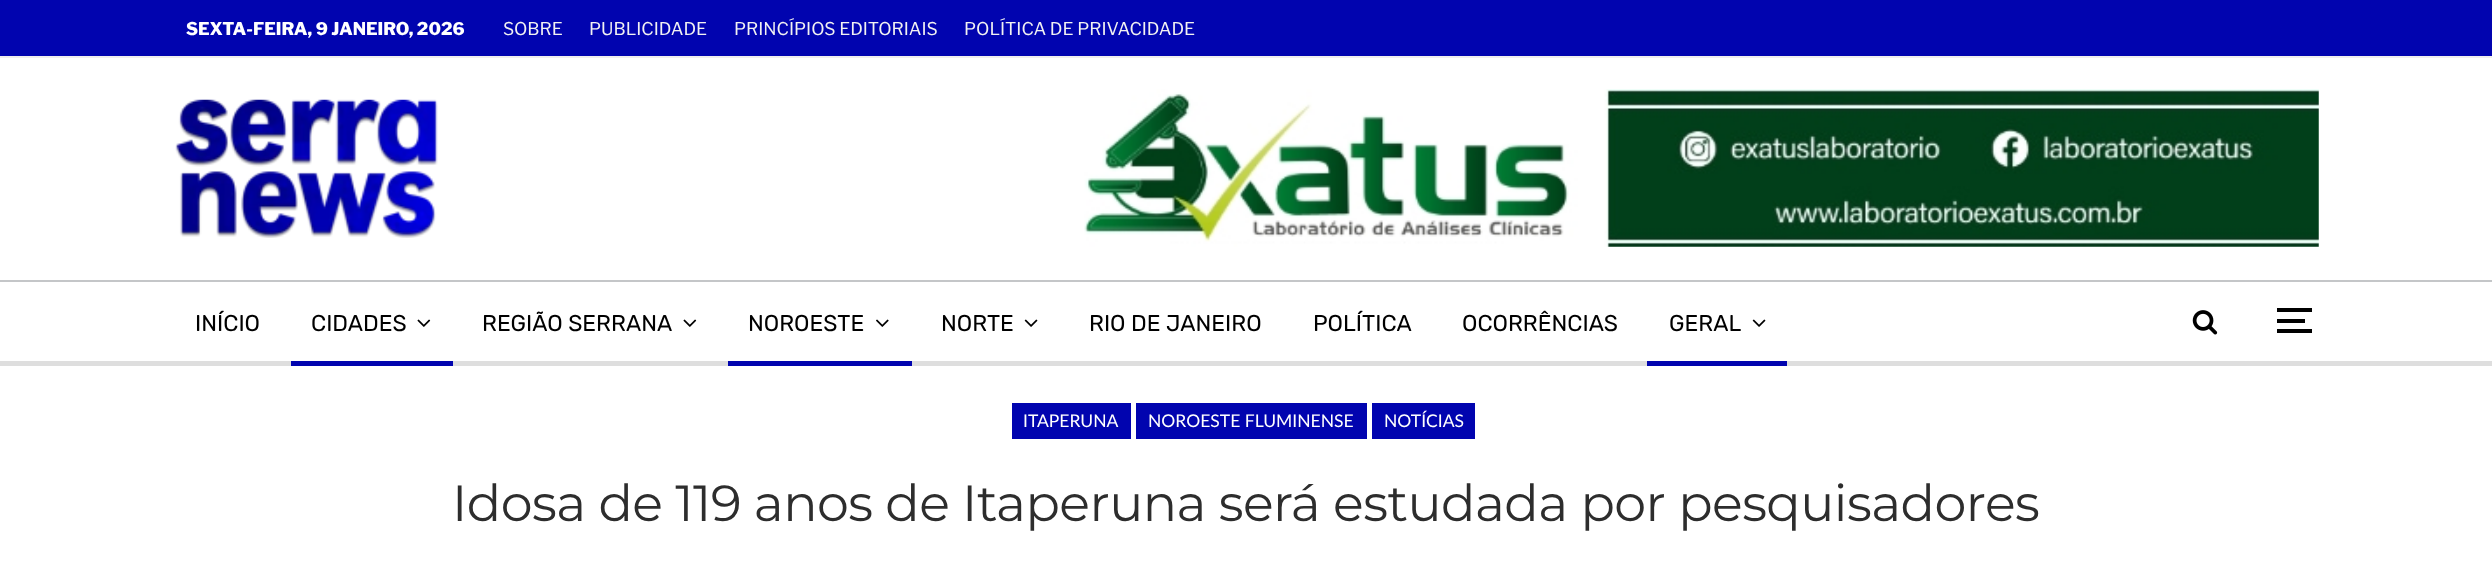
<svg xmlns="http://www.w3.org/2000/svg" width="2492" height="565">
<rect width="100%" height="100%" fill="#fff"/>
<rect width="2492" height="56" fill="#0104af"/>
<rect y="56" width="2492" height="2" fill="#efefef"/>
<text x="186" y="35" style="font-family:Libre Franklin;font-size:17.5px;font-weight:800;fill:#fff">SEXTA-FEIRA, 9 JANEIRO, 2026</text>
<text x="503" y="35" style="font-family:Libre Franklin;font-size:17.5px;fill:#f2f2f2">SOBRE</text>
<text x="589" y="35" style="font-family:Libre Franklin;font-size:17.5px;fill:#f2f2f2">PUBLICIDADE</text>
<text x="734" y="35" style="font-family:Libre Franklin;font-size:17.5px;fill:#f2f2f2">PRINCÍPIOS EDITORIAIS</text>
<text x="964" y="35" style="font-family:Libre Franklin;font-size:17.5px;fill:#f2f2f2">POLÍTICA DE PRIVACIDADE</text>
<image x="175" y="99" width="263" height="139" href="media/1.png"/>
<image x="1084" y="89" width="1235" height="158" href="media/2.png"/>
<rect y="280" width="2492" height="2" fill="#c4c6c8"/>
<rect y="361" width="2492" height="5" fill="#dedede"/>
<text x="195" y="331" style="font-family:Rubik;font-size:22.75px;fill:#000">INÍCIO</text>
<text x="311" y="331" style="font-family:Rubik;font-size:22.75px;fill:#000">CIDADES</text>
<image x="417" y="319" width="14" height="8" href="media/3.png"/>
<rect x="291" y="361" width="162" height="5" fill="#0104af"/>
<text x="482" y="331" style="font-family:Rubik;font-size:22.75px;fill:#000">REGIÃO SERRANA</text>
<image x="683" y="319" width="14" height="8" href="media/3.png"/>
<text x="748" y="331" style="font-family:Rubik;font-size:22.75px;fill:#000">NOROESTE</text>
<image x="876" y="319" width="13" height="8" href="media/4.png"/>
<rect x="728" y="361" width="184" height="5" fill="#0104af"/>
<text x="941" y="331" style="font-family:Rubik;font-size:22.75px;fill:#000">NORTE</text>
<image x="1024" y="319" width="14" height="8" href="media/5.png"/>
<text x="1089" y="331" style="font-family:Rubik;font-size:22.75px;fill:#000">RIO DE JANEIRO</text>
<text x="1313" y="331" style="font-family:Rubik;font-size:22.75px;fill:#000">POLÍTICA</text>
<text x="1462" y="331" style="font-family:Rubik;font-size:22.75px;fill:#000">OCORRÊNCIAS</text>
<text x="1669" y="331" style="font-family:Rubik;font-size:22.75px;fill:#000">GERAL</text>
<image x="1752" y="319" width="14" height="8" href="media/5.png"/>
<rect x="1647" y="361" width="140" height="5" fill="#0104af"/>
<image x="2192" y="310" width="26" height="25" href="media/6.png"/>
<rect x="2277" y="319" width="28" height="4" fill="#000"/>
<rect x="2277" y="308" width="35" height="4" fill="#000"/>
<rect x="2277" y="329" width="35" height="4" fill="#000"/>
<rect x="1012" y="403" width="119" height="36" fill="#0104af"/>
<text x="1023" y="427" style="font-family:Lato;font-size:17.5px;fill:#fff">ITAPERUNA</text>
<rect x="1136" y="403" width="231" height="36" fill="#0104af"/>
<text x="1148" y="427" style="font-family:Lato;font-size:17.5px;fill:#fff">NOROESTE FLUMINENSE</text>
<rect x="1372" y="403" width="103" height="36" fill="#0104af"/>
<text x="1384" y="427" style="font-family:Lato;font-size:17.5px;fill:#fff">NOTÍCIAS</text>
<text x="452" y="521" style="font-family:Montserrat;font-size:50.75px;letter-spacing:-0.53px;fill:#2d2d2d">Idosa de 119 anos de Itaperuna será estudada por pesquisadores</text>
</svg>
